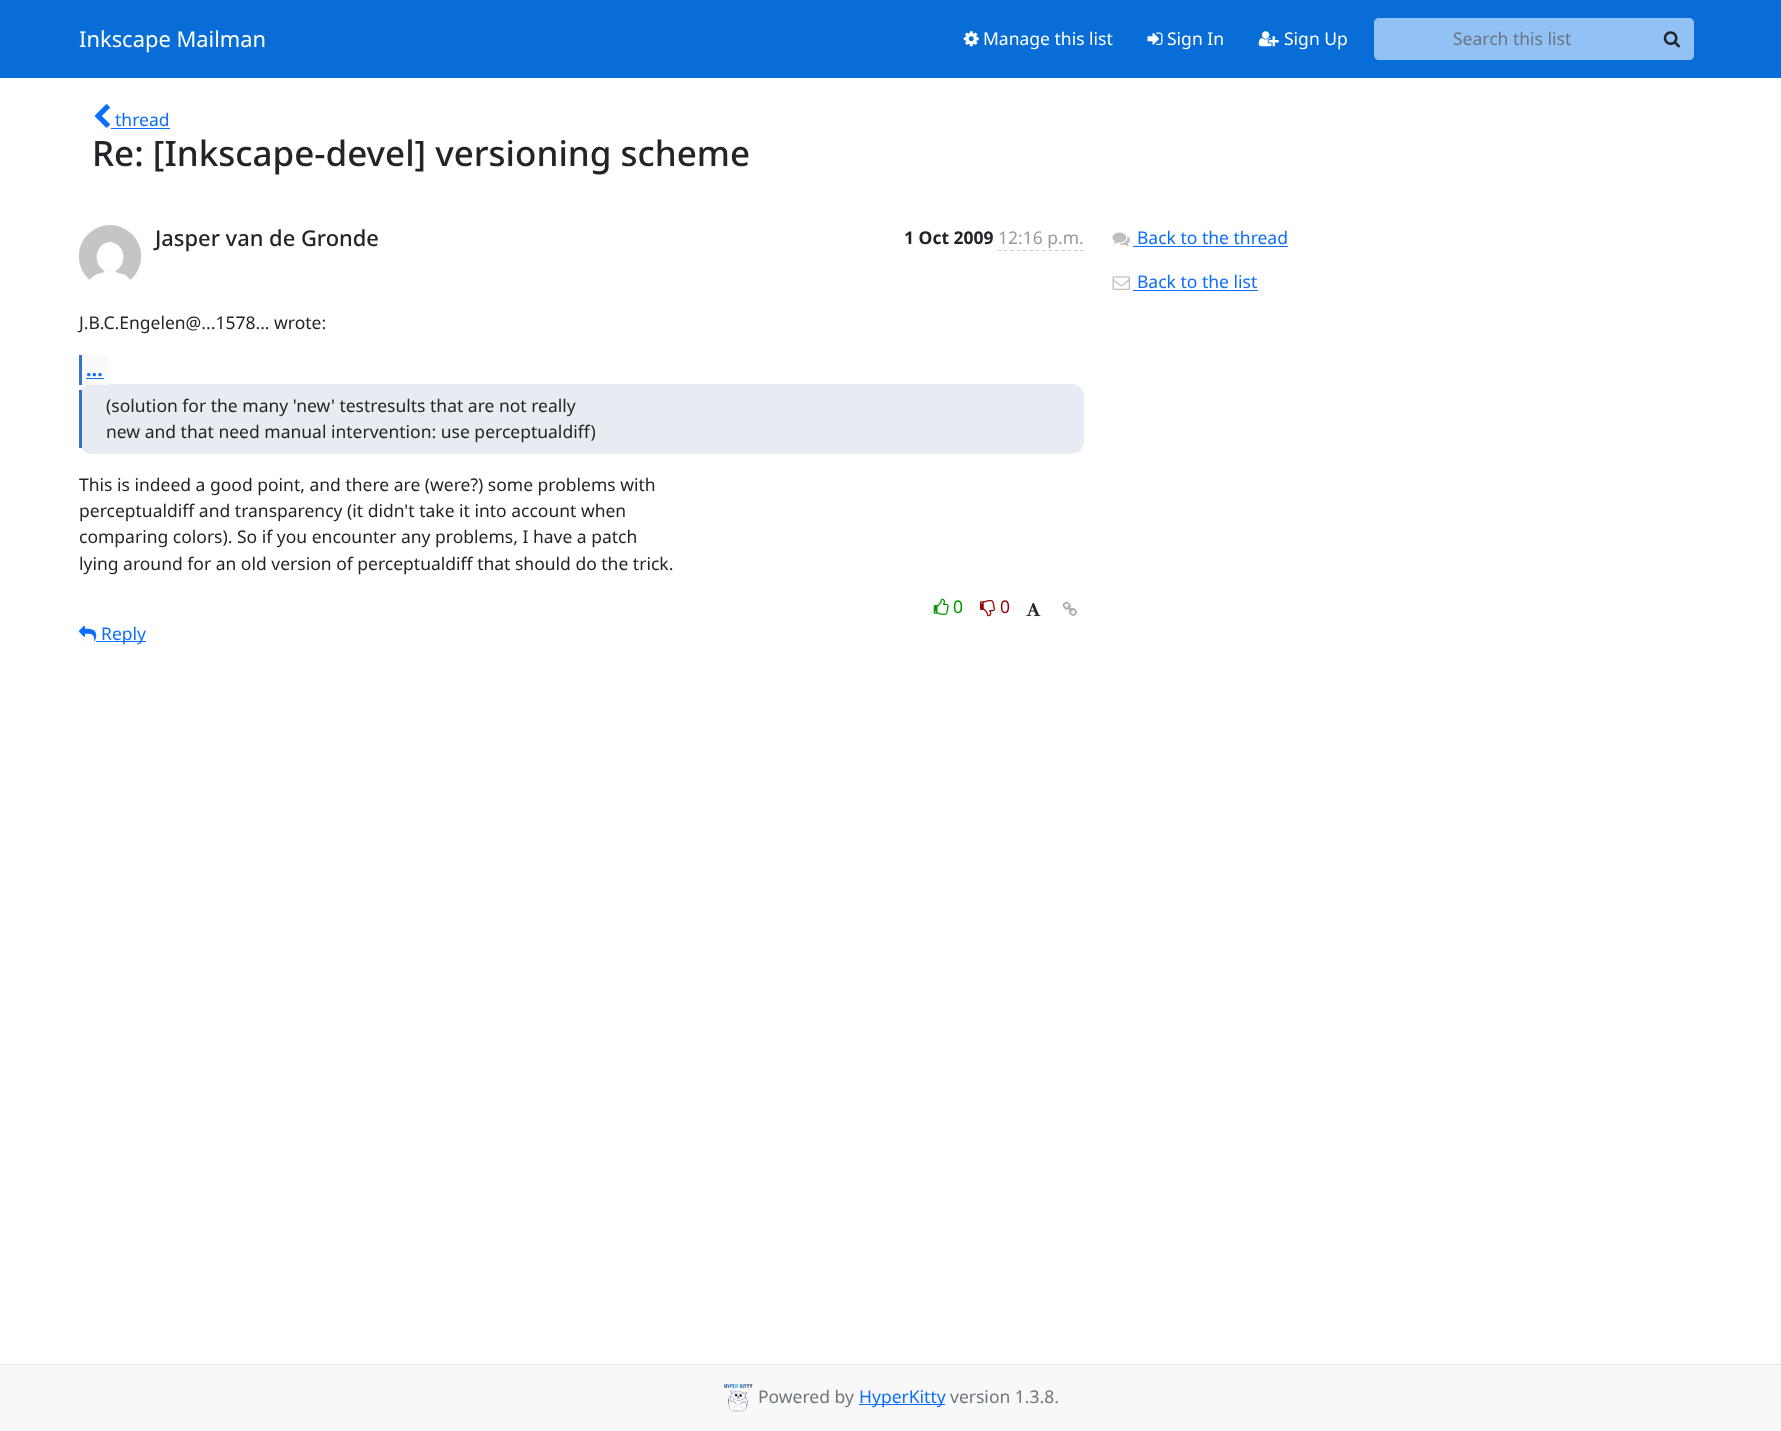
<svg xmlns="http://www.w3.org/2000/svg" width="1781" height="1431">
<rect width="100%" height="100%" fill="#fff"/>
<rect width="1781" height="78" fill="#086dd7"/>
<text x="79" y="47" style="font-family:Noto Sans;font-size:21.9px;fill:#fff">Inkscape Mailman</text>
<image x="963" y="31" width="16" height="16" href="media/1.png"/>
<text x="983" y="45" style="font-family:Noto Sans;font-size:17.5px;fill:#fff">Manage this list</text>
<image x="1147" y="32" width="16" height="13" href="media/2.png"/>
<text x="1167" y="45" style="font-family:Noto Sans;font-size:17.5px;fill:#fff">Sign In</text>
<image x="1258" y="31" width="21" height="16" href="media/3.png"/>
<text x="1284" y="45" style="font-family:Noto Sans;font-size:17.5px;fill:#fff">Sign Up</text>
<path d="M1379 18h271v42h-271c-3 0-5-2-5-5v-32c0-3 2-5 5-5z" fill="#92c2f5"/>
<text x="1453" y="45" style="font-family:Noto Sans;font-size:17.5px;fill:#6c757d">Search this list</text>
<path d="M1649 18h40c3 0 5 2 5 5v32c0 3-2 5-5 5h-40z" fill="#92c2f5"/>
<image x="1663" y="31" width="17" height="17" href="media/4.png"/>
<image x="94" y="104" width="16" height="24" href="media/5.png"/>
<text x="115" y="126" style="font-family:Noto Sans;font-size:17.5px;fill:#0d6efd">thread</text>
<rect x="111" y="128" width="59" height="1" fill="#0d6efd"/>
<text x="92" y="166" style="font-family:Noto Sans;font-size:35px;font-weight:500;fill:#212529">Re: [Inkscape-devel] versioning scheme</text>
<image x="79" y="225" width="62" height="55" href="media/6.png"/>
<text x="155" y="246" style="font-family:Noto Sans;font-size:21.9px;font-weight:500;fill:#212529">Jasper van de Gronde</text>
<text x="904" y="244" style="font-family:Noto Sans;font-size:17.5px;font-weight:bold;fill:#212529">1 Oct 2009</text>
<text x="998" y="244" style="font-family:Noto Sans;font-size:17.5px;fill:#999">12:16 p.m.</text>
<path d="M997.5 250.5h86.5" fill="none" stroke="#ccc" stroke-width="1.2" stroke-dasharray="3.75 2.6"/>
<text x="79" y="329" style="font-family:Noto Sans;font-size:17.5px;fill:#212529">J.B.C.Engelen@...1578... wrote:</text>
<rect x="79" y="384" width="1005" height="70" rx="13" fill="#e8ecf2"/>
<rect x="82" y="355" width="27" height="30" fill="#fafafa"/>
<text x="86" y="376" style="font-family:Noto Sans;font-size:20px;font-weight:bold;fill:#0d6efd">...</text>
<rect x="79" y="355" width="3" height="30" fill="#3771c8"/>
<rect x="86" y="378" width="18" height="1" fill="#0d6efd"/>
<rect x="79" y="390" width="3" height="58" fill="#3771c8"/>
<text x="106" y="412" style="font-family:Noto Sans;font-size:17.5px;fill:#212529">(solution for the many 'new' testresults that are not really</text>
<text x="106" y="438" style="font-family:Noto Sans;font-size:17.5px;fill:#212529">new and that need manual intervention: use perceptualdiff)</text>
<text x="79" y="491" style="font-family:Noto Sans;font-size:17.5px;fill:#212529">This is indeed a good point, and there are (were?) some problems with</text>
<text x="79" y="517" style="font-family:Noto Sans;font-size:17.5px;fill:#212529">perceptualdiff and transparency (it didn't take it into account when</text>
<text x="79" y="543" style="font-family:Noto Sans;font-size:17.5px;fill:#212529">comparing colors). So if you encounter any problems, I have a patch</text>
<text x="79" y="570" style="font-family:Noto Sans;font-size:17.5px;fill:#212529">lying around for an old version of perceptualdiff that should do the trick.</text>
<image x="933" y="598" width="16" height="17" href="media/7.png"/>
<text x="953" y="613" style="font-family:Noto Sans;font-size:17.5px;fill:#090">0</text>
<image x="980" y="600" width="15" height="17" href="media/8.png"/>
<text x="1000" y="613" style="font-family:Noto Sans;font-size:17.5px;fill:#900">0</text>
<image x="1026" y="603" width="15" height="14" href="media/9.png"/>
<image x="1062" y="601" width="15" height="15" href="media/10.png"/>
<image x="78" y="625" width="19" height="17" href="media/11.png"/>
<rect x="96" y="641" width="50" height="1" fill="#0d6efd"/>
<text x="101" y="640" style="font-family:Noto Sans;font-size:17.5px;fill:#0d6efd">Reply</text>
<image x="1112" y="232" width="18" height="15" href="media/12.png"/>
<text x="1137" y="244" style="font-family:Noto Sans;font-size:17.5px;fill:#0d6efd">Back to the thread</text>
<rect x="1133" y="246" width="155" height="1" fill="#0d6efd"/>
<image x="1112" y="276" width="18" height="14" href="media/13.png"/>
<text x="1137" y="288" style="font-family:Noto Sans;font-size:17.5px;fill:#0d6efd">Back to the list</text>
<rect x="1133" y="290" width="125" height="1" fill="#0d6efd"/>
<rect y="1365" width="1781" height="66" fill="#f8f8f8"/>
<rect y="1364" width="1781" height="1" fill="#e7e7e7"/>
<image x="724" y="1383" width="29" height="29" href="media/14.png"/>
<text x="758" y="1403" style="font-family:Noto Sans;font-size:17.5px;fill:#6c757d">Powered by</text>
<rect x="859" y="1404" width="86" height="1" fill="#0d6efd"/>
<text x="859" y="1403" style="font-family:Noto Sans;font-size:17.5px;fill:#0d6efd">HyperKitty</text>
<text x="950" y="1403" style="font-family:Noto Sans;font-size:17.5px;fill:#6c757d">version 1.3.8.</text>
</svg>
